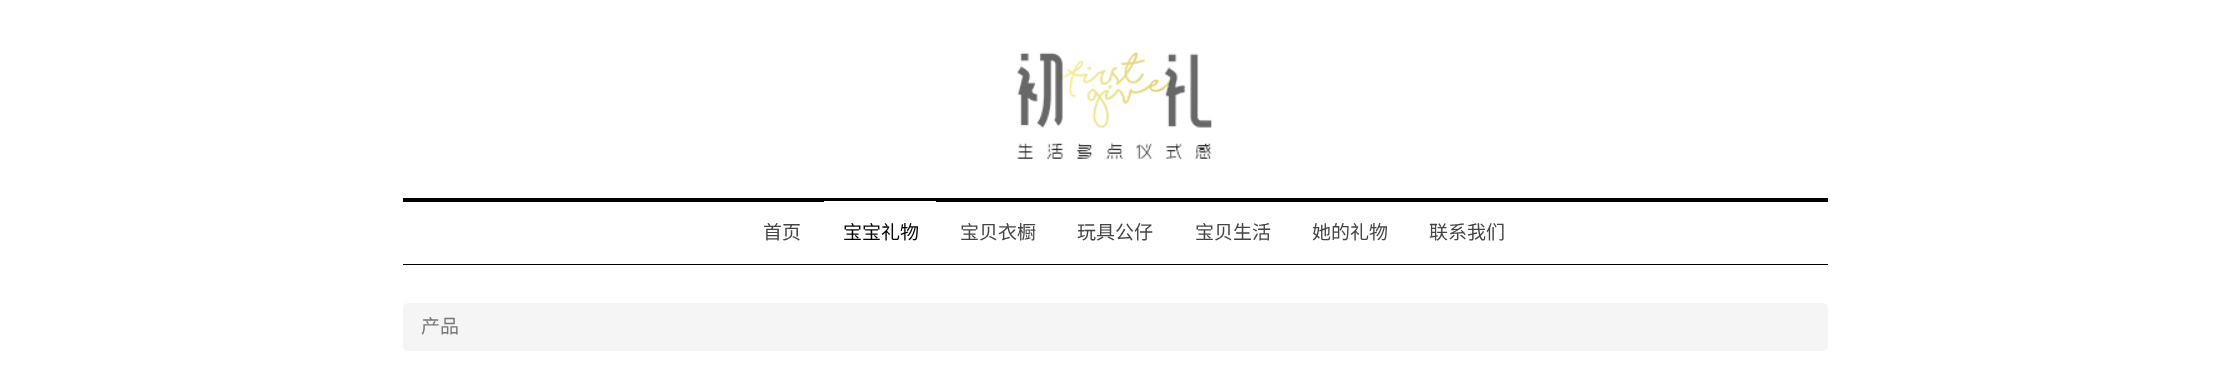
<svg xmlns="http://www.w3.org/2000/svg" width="2230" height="381">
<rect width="100%" height="100%" fill="#fff"/>
<image x="1017" y="52" width="195" height="108" href="media/1.png"/>
<rect x="403" y="198" width="1425" height="4" fill="#000"/>
<rect x="403" y="264" width="1425" height="1" fill="#000"/>
<text x="763" y="239" style="font-family:Noto Sans CJK SC;font-size:19px;fill:#444">首页</text>
<rect x="824" y="201" width="112" height="1" fill="#fff"/>
<text x="843" y="239" style="font-family:Noto Sans CJK SC;font-size:19px;fill:#000">宝宝礼物</text>
<text x="960" y="239" style="font-family:Noto Sans CJK SC;font-size:19px;fill:#444">宝贝衣橱</text>
<text x="1077" y="239" style="font-family:Noto Sans CJK SC;font-size:19px;fill:#444">玩具公仔</text>
<text x="1195" y="239" style="font-family:Noto Sans CJK SC;font-size:19px;fill:#444">宝贝生活</text>
<text x="1312" y="239" style="font-family:Noto Sans CJK SC;font-size:19px;fill:#444">她的礼物</text>
<text x="1429" y="239" style="font-family:Noto Sans CJK SC;font-size:19px;fill:#444">联系我们</text>
<rect x="403" y="303" width="1425" height="48" rx="5" fill="#f5f5f5"/>
<text x="421" y="333" style="font-family:Noto Sans CJK SC;font-size:19px;fill:#777">产品</text>
</svg>
